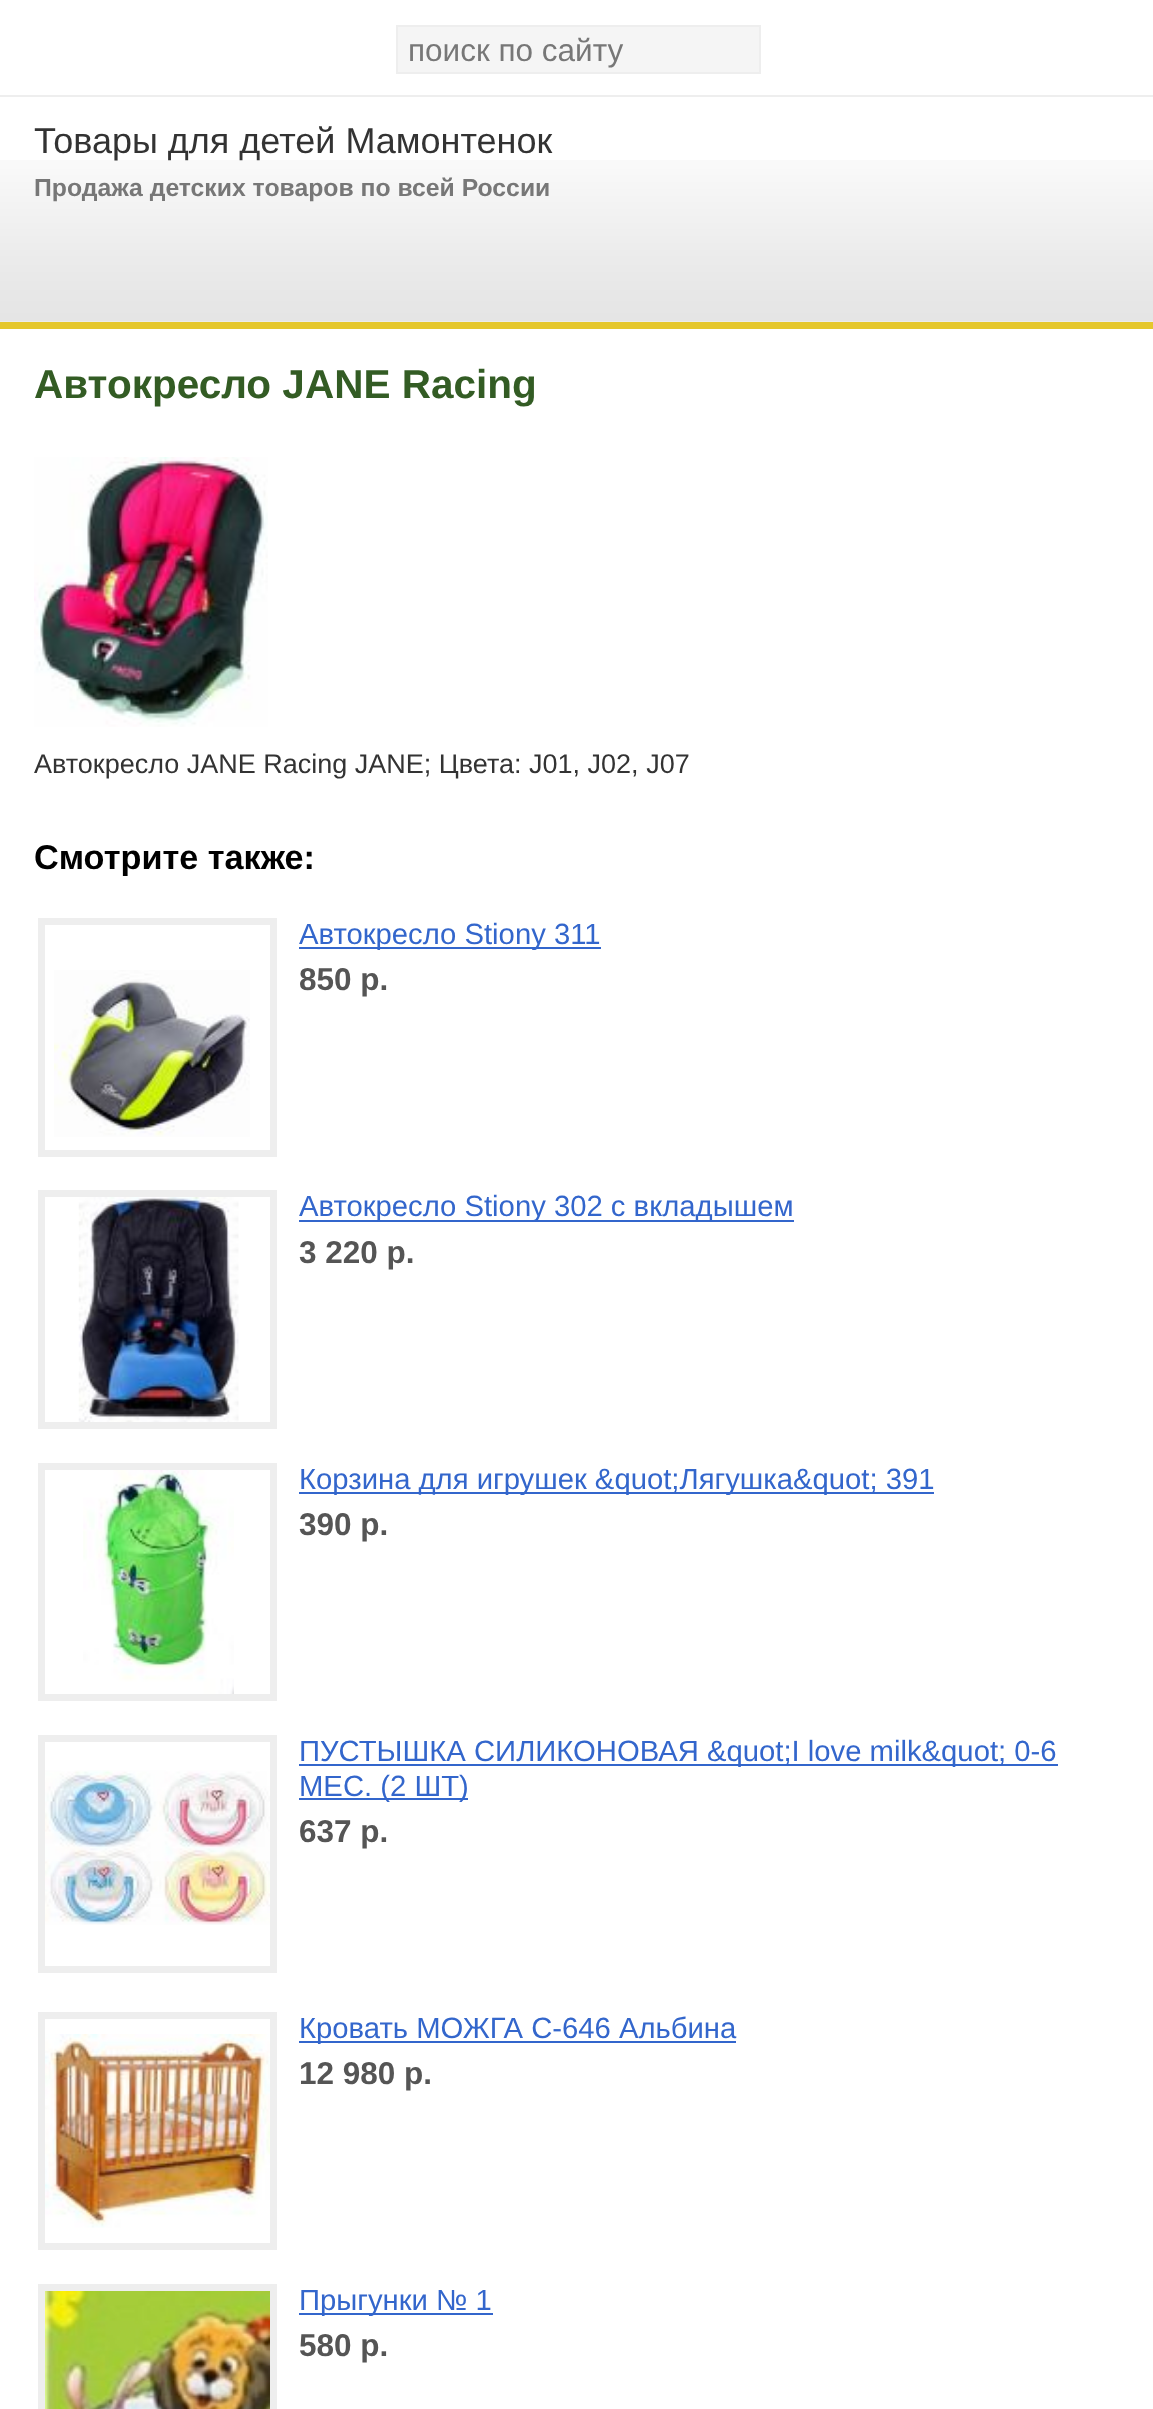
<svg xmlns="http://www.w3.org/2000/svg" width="1153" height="2409">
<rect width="100%" height="100%" fill="#fff"/>
<rect y="95" width="1153" height="2" fill="#eee"/>
<rect x="397" y="26" width="363" height="47" fill="#f5f5f5" stroke="#eee" stroke-width="2"/>
<text x="408" y="61" style="font-family:Liberation Sans;font-size:31.5px;fill:#777">поиск по сайту</text>
<image x="0" y="160" width="1153" height="162" href="media/1.png"/>
<rect y="322" width="1153" height="7" fill="#e5c72c"/>
<text x="34" y="153" style="font-family:Liberation Sans;font-size:36px;fill:#333">Товары для детей Мамонтенок</text>
<text x="34" y="196" style="font-family:Liberation Sans;font-size:24.75px;font-weight:bold;fill:#777">Продажа детских товаров по всей России</text>
<text x="34" y="398" style="font-family:Liberation Sans;font-size:40.5px;font-weight:bold;fill:#335c24">Автокресло JANE Racing</text>
<image x="34" y="457" width="234" height="270" href="media/2.png"/>
<text x="34" y="773" style="font-family:Liberation Sans;font-size:27px;fill:#333">Автокресло JANE Racing JANE; Цвета: J01, J02, J07</text>
<text x="34" y="869" style="font-family:Liberation Sans;font-size:34.25px;font-weight:bold;fill:#000">Смотрите также:</text>
<image x="54" y="970" width="196" height="167" href="media/3.png"/>
<rect x="41.5" y="921.5" width="232" height="232" fill="none" stroke="#eee" stroke-width="7"/>
<rect x="299" y="947" width="302" height="2" fill="#36c"/>
<text x="299" y="944" style="font-family:Liberation Sans;font-size:29.25px;fill:#36c">Автокресло Stiony 311</text>
<text x="299" y="990" style="font-family:Liberation Sans;font-size:31.5px;font-weight:bold;fill:#555">850 р.</text>
<image x="78" y="1197" width="161" height="225" href="media/4.png"/>
<rect x="41.5" y="1193.5" width="232" height="232" fill="none" stroke="#eee" stroke-width="7"/>
<rect x="299" y="1220" width="495" height="2" fill="#36c"/>
<text x="299" y="1216" style="font-family:Liberation Sans;font-size:29.25px;fill:#36c">Автокресло Stiony 302 с вкладышем</text>
<text x="299" y="1263" style="font-family:Liberation Sans;font-size:31.5px;font-weight:bold;fill:#555">3 220 р.</text>
<image x="83" y="1470" width="151" height="224" href="media/5.png"/>
<rect x="41.5" y="1466.5" width="232" height="231" fill="none" stroke="#eee" stroke-width="7"/>
<rect x="299" y="1492" width="635" height="2" fill="#36c"/>
<text x="299" y="1489" style="font-family:Liberation Sans;font-size:29.25px;fill:#36c">Корзина для игрушек &amp;quot;Лягушка&amp;quot; 391</text>
<text x="299" y="1535" style="font-family:Liberation Sans;font-size:31.5px;font-weight:bold;fill:#555">390 р.</text>
<image x="45" y="1770" width="225" height="155" href="media/6.png"/>
<rect x="41.5" y="1738.5" width="232" height="231" fill="none" stroke="#eee" stroke-width="7"/>
<rect x="299" y="1764" width="759" height="2" fill="#36c"/>
<text x="299" y="1761" style="font-family:Liberation Sans;font-size:29.25px;fill:#36c">ПУСТЫШКА СИЛИКОНОВАЯ &amp;quot;I love milk&amp;quot; 0-6</text>
<rect x="299" y="1798" width="169" height="2" fill="#36c"/>
<text x="299" y="1796" style="font-family:Liberation Sans;font-size:29.25px;fill:#36c">МЕС. (2 ШТ)</text>
<text x="299" y="1842" style="font-family:Liberation Sans;font-size:31.5px;font-weight:bold;fill:#555">637 р.</text>
<image x="45" y="2034" width="225" height="194" href="media/7.png"/>
<rect x="41.5" y="2015.5" width="232" height="231" fill="none" stroke="#eee" stroke-width="7"/>
<rect x="299" y="2041" width="437" height="2" fill="#36c"/>
<text x="299" y="2038" style="font-family:Liberation Sans;font-size:29.25px;fill:#36c">Кровать МОЖГА С-646 Альбина</text>
<text x="299" y="2084" style="font-family:Liberation Sans;font-size:31.5px;font-weight:bold;fill:#555">12 980 р.</text>
<image x="45" y="2291" width="225" height="118" href="media/8.png"/>
<rect x="41.5" y="2287.5" width="232" height="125" fill="none" stroke="#eee" stroke-width="7"/>
<rect x="299" y="2313" width="194" height="2" fill="#36c"/>
<text x="299" y="2310" style="font-family:Liberation Sans;font-size:29.25px;fill:#36c">Прыгунки № 1</text>
<text x="299" y="2356" style="font-family:Liberation Sans;font-size:31.5px;font-weight:bold;fill:#555">580 р.</text>
</svg>
